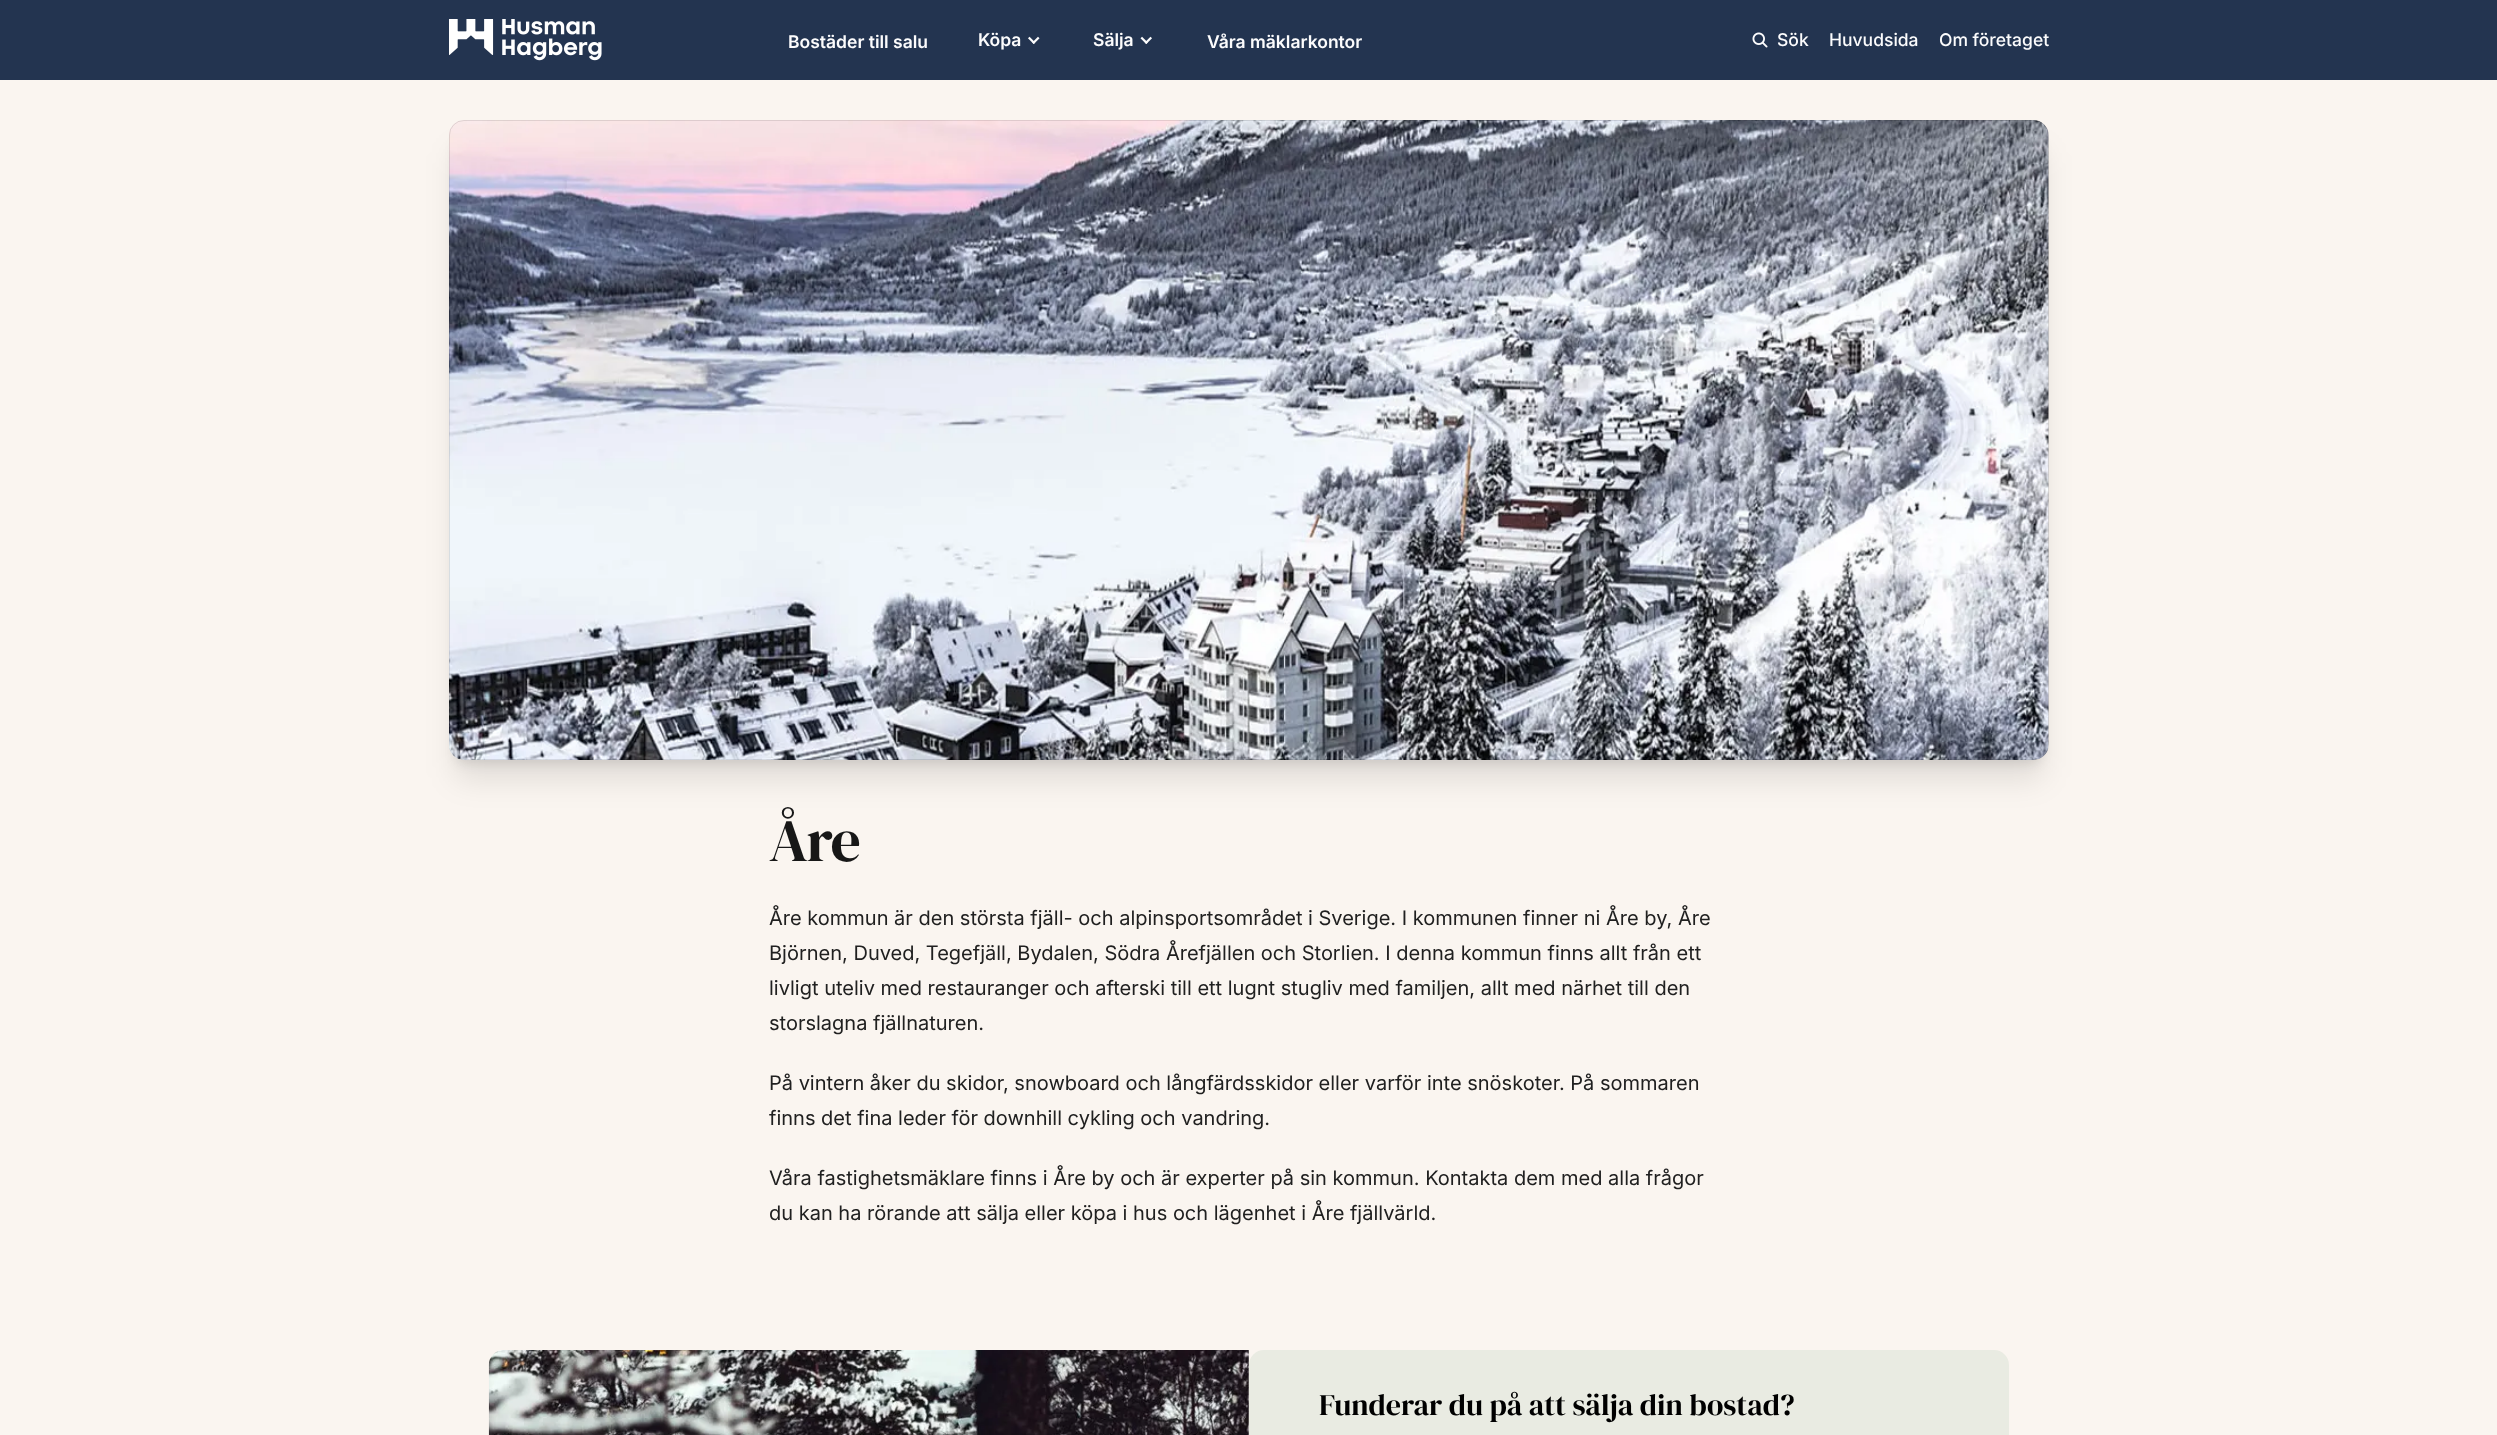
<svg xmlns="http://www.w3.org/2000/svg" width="2497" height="1435">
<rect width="100%" height="100%" fill="#faf5f0"/>
<rect width="2497" height="80" fill="#233450"/>
<image x="449" y="19" width="153" height="42" href="media/1.png"/>
<text x="788" y="48" style="font-family:Inter;font-size:17.5px;font-weight:600;fill:#fcfcfd">Bostäder till salu</text>
<text x="978" y="46" style="font-family:Inter;font-size:17.5px;font-weight:600;fill:#fcfcfd">Köpa</text>
<image x="1028" y="36" width="8" height="8" href="media/2.png"/>
<image x="1032" y="36" width="8" height="8" href="media/3.png"/>
<text x="1093" y="46" style="font-family:Inter;font-size:17.5px;font-weight:600;fill:#fcfcfd">Sälja</text>
<image x="1140" y="36" width="8" height="8" href="media/4.png"/>
<image x="1144" y="36" width="8" height="8" href="media/5.png"/>
<text x="1207" y="48" style="font-family:Inter;font-size:17.5px;font-weight:600;fill:#fcfcfd">Våra mäklarkontor</text>
<image x="1752" y="32" width="16" height="16" href="media/6.png"/>
<text x="1777" y="46" style="font-family:Inter;font-size:17.5px;font-weight:500;fill:#fcfcfd">Sök</text>
<text x="1829" y="46" style="font-family:Inter;font-size:17.5px;font-weight:500;fill:#fcfcfd">Huvudsida</text>
<text x="1939" y="46" style="font-family:Inter;font-size:17.5px;font-weight:500;fill:#fcfcfd">Om företaget</text>
<rect x="456" y="138" width="1585" height="625" rx="8" fill="#0000001a" filter="blur(6px)"/>
<rect x="455" y="151" width="1588" height="628" rx="9" fill="#0000001a" filter="blur(15.5px)"/>
<image x="449" y="120" width="1600" height="640" href="media/7.png"/>
<rect x="449.5" y="120.5" width="1599" height="639" rx="14.5" fill="none" stroke="#0000001a"/>
<text x="769" y="861" style="font-family:DM Serif Display;font-size:60px;letter-spacing:-1.5px;fill:#171717">Åre</text>
<text x="769" y="925" style="font-family:Inter;font-size:20px;fill:#202020">Åre kommun är den största fjäll- och alpinsportsområdet i Sverige. I kommunen finner ni Åre by, Åre</text>
<text x="769" y="960" style="font-family:Inter;font-size:20px;fill:#202020">Björnen, Duved, Tegefjäll, Bydalen, Södra Årefjällen och Storlien. I denna kommun finns allt från ett</text>
<text x="769" y="995" style="font-family:Inter;font-size:20px;fill:#202020">livligt uteliv med restauranger och afterski till ett lugnt stugliv med familjen, allt med närhet till den</text>
<text x="769" y="1030" style="font-family:Inter;font-size:20px;fill:#202020">storslagna fjällnaturen.</text>
<text x="769" y="1090" style="font-family:Inter;font-size:20px;fill:#202020">På vintern åker du skidor, snowboard och långfärdsskidor eller varför inte snöskoter. På sommaren</text>
<text x="769" y="1125" style="font-family:Inter;font-size:20px;fill:#202020">finns det fina leder för downhill cykling och vandring.</text>
<text x="769" y="1185" style="font-family:Inter;font-size:20px;fill:#202020">Våra fastighetsmäklare finns i Åre by och är experter på sin kommun. Kontakta dem med alla frågor</text>
<text x="769" y="1220" style="font-family:Inter;font-size:20px;fill:#202020">du kan ha rörande att sälja eller köpa i hus och lägenhet i Åre fjällvärld.</text>
<image x="488" y="1350" width="761" height="85" href="media/8.png"/>
<rect x="1249" y="1350" width="760" height="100" rx="15" fill="#e9ebe2"/>
<text x="1319" y="1415" style="font-family:DM Serif Display;font-size:30px;fill:#000">Funderar du på att sälja din bostad?</text>
</svg>
